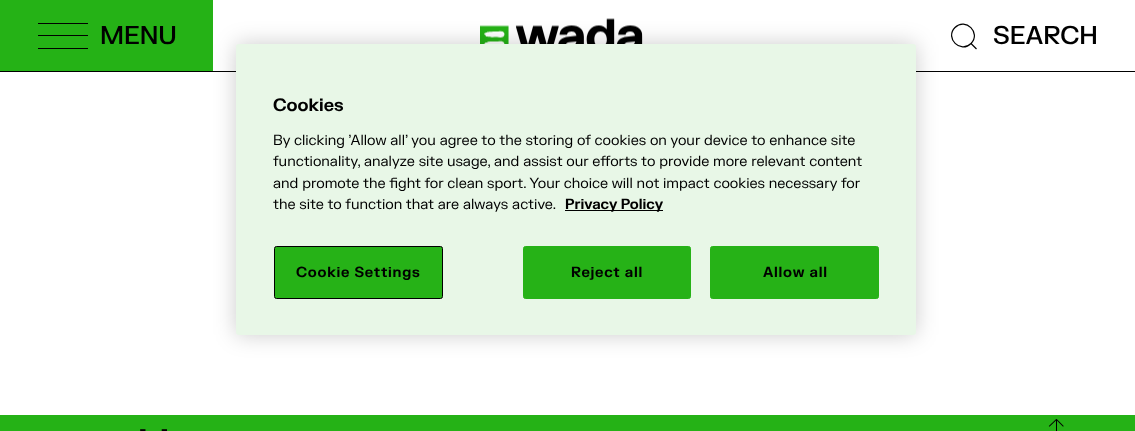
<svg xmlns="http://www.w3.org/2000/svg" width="1135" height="431">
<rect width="100%" height="100%" fill="#fff"/>
<rect y="71" width="1135" height="1" fill="#000"/>
<rect width="213" height="71" fill="#25b216"/>
<rect x="38" y="23" width="50" height="1" fill="#000"/>
<rect x="38" y="35" width="50" height="1" fill="#000"/>
<rect x="38" y="48" width="50" height="1" fill="#000"/>
<text x="100" y="44" style="font-family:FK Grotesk;font-size:25px;font-weight:500;fill:#000">MENU</text>
<image x="480" y="18" width="163" height="26" href="media/1.png"/>
<path d="M955 27.5c10.5-10.5 26.5 5.5 16 16c-10.5 10.5-26.5-5.5-16-16zm16 16l5.5 5.5" fill="none" stroke="#000" stroke-width="1.2"/>
<text x="993" y="44" style="font-family:FK Grotesk;font-size:25px;font-weight:500;fill:#000">SEARCH</text>
<rect y="415" width="1135" height="16" fill="#25b216"/>
<image x="140" y="429" width="27" height="2" href="media/2.png"/>
<image x="1048" y="419" width="16" height="12" href="media/3.png"/>
<rect x="236" y="44" width="680" height="291" rx="3" fill="#00000033" filter="blur(11px)"/>
<rect x="236" y="44" width="680" height="291" rx="3" fill="#e8f7e7"/>
<text x="273" y="111" style="font-family:FK Grotesk;font-size:17.5px;font-weight:bold;fill:#000">Cookies</text>
<text x="273" y="145" style="font-family:FK Grotesk;font-size:14.25px;fill:#000">By clicking 'Allow all' you agree to the storing of cookies on your device to enhance site</text>
<text x="273" y="166" style="font-family:FK Grotesk;font-size:14.25px;fill:#000">functionality, analyze site usage, and assist our efforts to provide more relevant content</text>
<text x="273" y="188" style="font-family:FK Grotesk;font-size:14.25px;fill:#000">and promote the fight for clean sport. Your choice will not impact cookies necessary for</text>
<text x="273" y="209" style="font-family:FK Grotesk;font-size:14.25px;fill:#000">the site to function that are always active.</text>
<rect x="565" y="210" width="98" height="1" fill="#000"/>
<text x="565" y="209" style="font-family:FK Grotesk;font-size:14.25px;font-weight:bold;fill:#000">Privacy Policy</text>
<rect x="274.5" y="246.5" width="168" height="52" rx="2" fill="#26b217" stroke="#000"/>
<text x="296" y="277" style="font-family:FK Grotesk;font-size:14.25px;font-weight:bold;letter-spacing:0.75px;fill:#000">Cookie Settings</text>
<rect x="523.5" y="246.5" width="167" height="52" rx="2" fill="#26b217" stroke="#26b217"/>
<text x="571" y="277" style="font-family:FK Grotesk;font-size:14.25px;font-weight:bold;letter-spacing:0.75px;fill:#000">Reject all</text>
<rect x="710.5" y="246.5" width="168" height="52" rx="2" fill="#26b217" stroke="#26b217"/>
<text x="763" y="277" style="font-family:FK Grotesk;font-size:14.25px;font-weight:bold;letter-spacing:0.75px;fill:#000">Allow all</text>
</svg>
